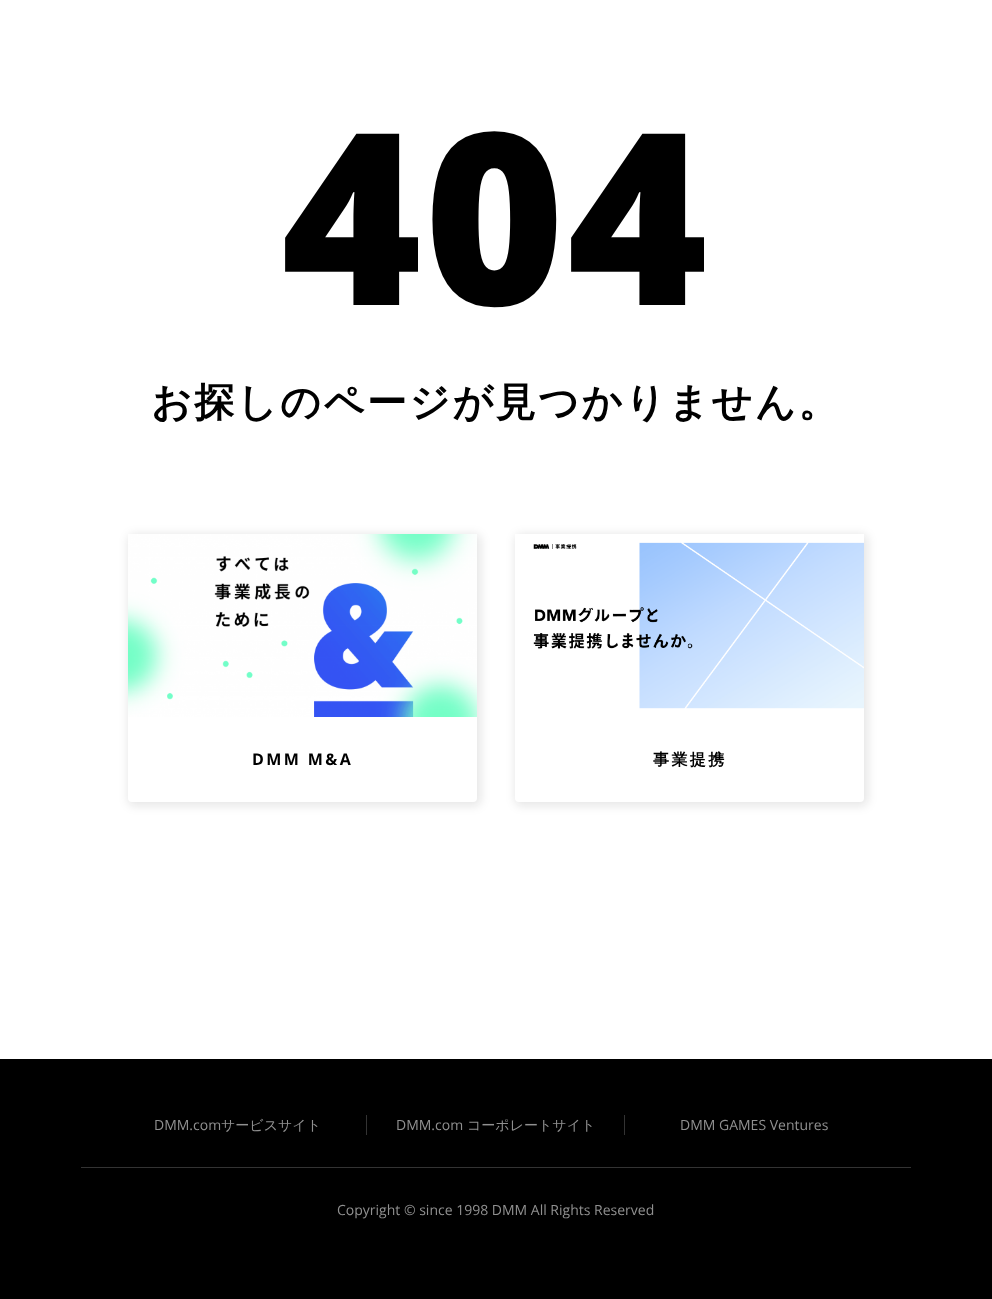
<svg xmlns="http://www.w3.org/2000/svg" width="992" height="1299">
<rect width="100%" height="100%" fill="#fff"/>
<text x="281" y="305" style="font-family:Open Sans;font-size:240px;font-weight:800;letter-spacing:2.4px;fill:#000">404</text>
<text x="151" y="416" style="font-family:WenQuanYi Zen Hei;font-size:40px;font-weight:bold;letter-spacing:2.4px;fill:#000">お探しのページが見つかりません。</text>
<rect x="128" y="534" width="353" height="272" rx="6" fill="#0a0a0a1a" filter="blur(5px)"/>
<rect x="128" y="534" width="349" height="268" rx="4" fill="#fff"/>
<image x="128" y="534" width="349" height="183" href="media/1.png"/>
<text x="252" y="765" style="font-family:Open Sans;font-size:16px;font-weight:bold;letter-spacing:2.4px;fill:#000">DMM M&amp;A</text>
<rect x="515" y="534" width="353" height="272" rx="6" fill="#0a0a0a1a" filter="blur(5px)"/>
<rect x="515" y="534" width="349" height="268" rx="4" fill="#fff"/>
<image x="515" y="534" width="349" height="175" href="media/2.png"/>
<text x="653" y="765" style="font-family:WenQuanYi Zen Hei;font-size:16px;font-weight:bold;letter-spacing:2.4px;fill:#000">事業提携</text>
<rect y="1059" width="992" height="240" fill="#000"/>
<rect x="366" y="1115" width="1" height="20" fill="#333"/>
<text x="154" y="1130" style="font-family:Open Sans;font-size:14px;fill:#909090">DMM.com</text>
<text x="221" y="1130" style="font-family:WenQuanYi Zen Hei;font-size:14px;font-weight:500;fill:#909090">サービスサイト</text>
<rect x="624" y="1115" width="1" height="20" fill="#333"/>
<text x="396" y="1130" style="font-family:Open Sans;font-size:14px;fill:#909090">DMM.com</text>
<text x="467" y="1130" style="font-family:WenQuanYi Zen Hei;font-size:14px;font-weight:500;fill:#909090">コーポレートサイト</text>
<text x="680" y="1130" style="font-family:Open Sans;font-size:14px;fill:#909090">DMM GAMES Ventures</text>
<rect x="81" y="1167" width="830" height="1" fill="#333"/>
<text x="337" y="1215" style="font-family:Open Sans;font-size:14px;fill:#909090">Copyright © since 1998 DMM All Rights Reserved</text>
</svg>
